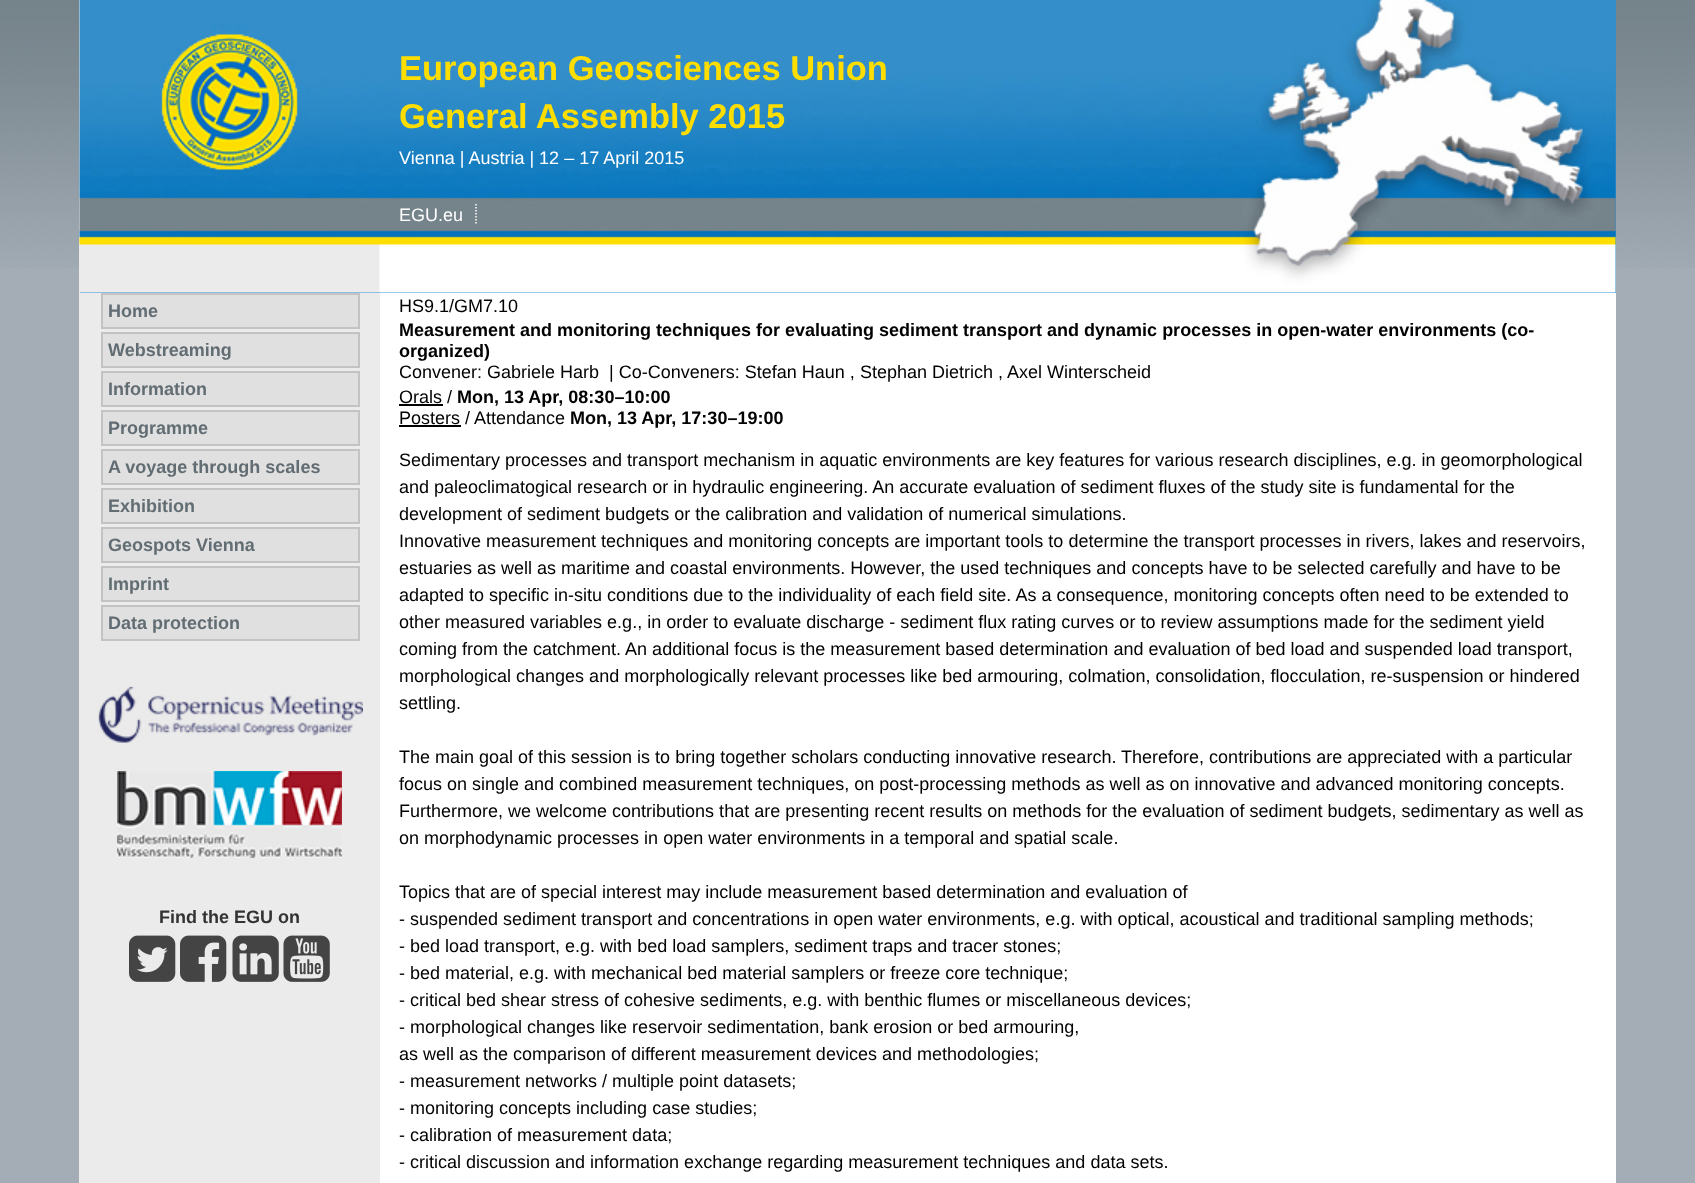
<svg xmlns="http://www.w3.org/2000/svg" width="1695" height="1183">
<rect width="100%" height="100%" fill="#a4adb6"/>
<image x="0" y="0" width="1695" height="268" href="media/1.png"/>
<rect x="380" y="293" width="1236" height="890" fill="#fff"/>
<rect x="79" width="301" height="1183" fill="#ebebeb"/>
<rect x="80" width="1536" height="293" fill="#348eca"/>
<image x="79" y="0" width="1537" height="293" href="media/2.png"/>
<text x="399" y="80" style="font-family:Liberation Sans;font-size:34.5px;font-weight:bold;fill:#fede00">European Geosciences Union</text>
<text x="399" y="128" style="font-family:Liberation Sans;font-size:34.5px;font-weight:bold;fill:#fede00">General Assembly 2015</text>
<text x="399" y="164" style="font-family:Liberation Sans;font-size:18px;fill:#fff">Vienna | Austria | 12 – 17 April 2015</text>
<text x="399" y="221" style="font-family:Liberation Sans;font-size:18px;fill:#fff">EGU.eu</text>
<path d="M476 204v21" fill="none" stroke="#fff" stroke-width="1.5" stroke-dasharray="1.5 1.5"/>
<rect x="102" y="294" width="257" height="34" fill="#e0e0e0" stroke="#c3c3c3" stroke-width="2"/>
<text x="108" y="317" style="font-family:Liberation Sans;font-size:18px;font-weight:bold;fill:#626d73">Home</text>
<rect x="102" y="333" width="257" height="34" fill="#e0e0e0" stroke="#c3c3c3" stroke-width="2"/>
<text x="108" y="356" style="font-family:Liberation Sans;font-size:18px;font-weight:bold;fill:#626d73">Webstreaming</text>
<rect x="102" y="372" width="257" height="34" fill="#e0e0e0" stroke="#c3c3c3" stroke-width="2"/>
<text x="108" y="395" style="font-family:Liberation Sans;font-size:18px;font-weight:bold;fill:#626d73">Information</text>
<rect x="102" y="411" width="257" height="34" fill="#e0e0e0" stroke="#c3c3c3" stroke-width="2"/>
<text x="108" y="434" style="font-family:Liberation Sans;font-size:18px;font-weight:bold;fill:#626d73">Programme</text>
<rect x="102" y="450" width="257" height="34" fill="#e0e0e0" stroke="#c3c3c3" stroke-width="2"/>
<text x="108" y="473" style="font-family:Liberation Sans;font-size:18px;font-weight:bold;fill:#626d73">A voyage through scales</text>
<rect x="102" y="489" width="257" height="34" fill="#e0e0e0" stroke="#c3c3c3" stroke-width="2"/>
<text x="108" y="512" style="font-family:Liberation Sans;font-size:18px;font-weight:bold;fill:#626d73">Exhibition</text>
<rect x="102" y="528" width="257" height="34" fill="#e0e0e0" stroke="#c3c3c3" stroke-width="2"/>
<text x="108" y="551" style="font-family:Liberation Sans;font-size:18px;font-weight:bold;fill:#626d73">Geospots Vienna</text>
<rect x="102" y="567" width="257" height="34" fill="#e0e0e0" stroke="#c3c3c3" stroke-width="2"/>
<text x="108" y="590" style="font-family:Liberation Sans;font-size:18px;font-weight:bold;fill:#626d73">Imprint</text>
<rect x="102" y="606" width="257" height="34" fill="#e0e0e0" stroke="#c3c3c3" stroke-width="2"/>
<text x="108" y="629" style="font-family:Liberation Sans;font-size:18px;font-weight:bold;fill:#626d73">Data protection</text>
<image x="98" y="686" width="265" height="57" href="media/3.png"/>
<image x="117" y="771" width="225" height="87" href="media/4.png"/>
<text x="159" y="923" style="font-family:Liberation Sans;font-size:18px;font-weight:bold;fill:#333">Find the EGU on</text>
<image x="129" y="935" width="47" height="47" href="media/5.png"/>
<image x="180" y="935" width="47" height="47" href="media/6.png"/>
<image x="232" y="935" width="47" height="47" href="media/7.png"/>
<image x="283" y="935" width="47" height="47" href="media/8.png"/>
<text x="399" y="312" style="font-family:Liberation Sans;font-size:18px;fill:#000">HS9.1/GM7.10</text>
<text x="399" y="336" style="font-family:Liberation Sans;font-size:18px;font-weight:bold;fill:#000">Measurement and monitoring techniques for evaluating sediment transport and dynamic processes in open-water environments (co-</text>
<text x="399" y="357" style="font-family:Liberation Sans;font-size:18px;font-weight:bold;fill:#000">organized)</text>
<text x="399" y="378" style="font-family:Liberation Sans;font-size:18px;fill:#000">Convener: Gabriele Harb</text>
<text x="609" y="378" style="font-family:Liberation Sans;font-size:18px;fill:#000">| Co-Conveners: Stefan Haun ,</text>
<text x="860" y="378" style="font-family:Liberation Sans;font-size:18px;fill:#000">Stephan Dietrich ,</text>
<text x="1007" y="378" style="font-family:Liberation Sans;font-size:18px;fill:#000">Axel Winterscheid</text>
<text x="399" y="403" style="font-family:Liberation Sans;font-size:18px;fill:#000">Orals /</text>
<rect x="399" y="404" width="44" height="2" fill="#000"/>
<text x="457" y="403" style="font-family:Liberation Sans;font-size:18px;font-weight:bold;fill:#000">Mon, 13 Apr, 08:30–10:00</text>
<text x="399" y="424" style="font-family:Liberation Sans;font-size:18px;fill:#000">Posters</text>
<rect x="399" y="425" width="62" height="2" fill="#000"/>
<text x="465" y="424" style="font-family:Liberation Sans;font-size:18px;fill:#000">/</text>
<text x="474" y="424" style="font-family:Liberation Sans;font-size:18px;fill:#000">Attendance</text>
<text x="570" y="424" style="font-family:Liberation Sans;font-size:18px;font-weight:bold;fill:#000">Mon, 13 Apr, 17:30–19:00</text>
<text x="399" y="466" style="font-family:Liberation Sans;font-size:18px;fill:#000">Sedimentary processes and transport mechanism in aquatic environments are key features for various research disciplines, e.g. in geomorphological</text>
<text x="399" y="493" style="font-family:Liberation Sans;font-size:18px;fill:#000">and paleoclimatogical research or in hydraulic engineering. An accurate evaluation of sediment fluxes of the study site is fundamental for the</text>
<text x="399" y="520" style="font-family:Liberation Sans;font-size:18px;fill:#000">development of sediment budgets or the calibration and validation of numerical simulations.</text>
<text x="399" y="547" style="font-family:Liberation Sans;font-size:18px;fill:#000">Innovative measurement techniques and monitoring concepts are important tools to determine the transport processes in rivers, lakes and reservoirs,</text>
<text x="399" y="574" style="font-family:Liberation Sans;font-size:18px;fill:#000">estuaries as well as maritime and coastal environments. However, the used techniques and concepts have to be selected carefully and have to be</text>
<text x="399" y="601" style="font-family:Liberation Sans;font-size:18px;fill:#000">adapted to specific in-situ conditions due to the individuality of each field site. As a consequence, monitoring concepts often need to be extended to</text>
<text x="399" y="628" style="font-family:Liberation Sans;font-size:18px;fill:#000">other measured variables e.g., in order to evaluate discharge - sediment flux rating curves or to review assumptions made for the sediment yield</text>
<text x="399" y="655" style="font-family:Liberation Sans;font-size:18px;fill:#000">coming from the catchment. An additional focus is the measurement based determination and evaluation of bed load and suspended load transport,</text>
<text x="399" y="682" style="font-family:Liberation Sans;font-size:18px;fill:#000">morphological changes and morphologically relevant processes like bed armouring, colmation, consolidation, flocculation, re-suspension or hindered</text>
<text x="399" y="709" style="font-family:Liberation Sans;font-size:18px;fill:#000">settling.</text>
<text x="399" y="763" style="font-family:Liberation Sans;font-size:18px;fill:#000">The main goal of this session is to bring together scholars conducting innovative research. Therefore, contributions are appreciated with a particular</text>
<text x="399" y="790" style="font-family:Liberation Sans;font-size:18px;fill:#000">focus on single and combined measurement techniques, on post-processing methods as well as on innovative and advanced monitoring concepts.</text>
<text x="399" y="817" style="font-family:Liberation Sans;font-size:18px;fill:#000">Furthermore, we welcome contributions that are presenting recent results on methods for the evaluation of sediment budgets, sedimentary as well as</text>
<text x="399" y="844" style="font-family:Liberation Sans;font-size:18px;fill:#000">on morphodynamic processes in open water environments in a temporal and spatial scale.</text>
<text x="399" y="898" style="font-family:Liberation Sans;font-size:18px;fill:#000">Topics that are of special interest may include measurement based determination and evaluation of</text>
<text x="399" y="925" style="font-family:Liberation Sans;font-size:18px;fill:#000">- suspended sediment transport and concentrations in open water environments, e.g. with optical, acoustical and traditional sampling methods;</text>
<text x="399" y="952" style="font-family:Liberation Sans;font-size:18px;fill:#000">- bed load transport, e.g. with bed load samplers, sediment traps and tracer stones;</text>
<text x="399" y="979" style="font-family:Liberation Sans;font-size:18px;fill:#000">- bed material, e.g. with mechanical bed material samplers or freeze core technique;</text>
<text x="399" y="1006" style="font-family:Liberation Sans;font-size:18px;fill:#000">- critical bed shear stress of cohesive sediments, e.g. with benthic flumes or miscellaneous devices;</text>
<text x="399" y="1033" style="font-family:Liberation Sans;font-size:18px;fill:#000">- morphological changes like reservoir sedimentation, bank erosion or bed armouring,</text>
<text x="399" y="1060" style="font-family:Liberation Sans;font-size:18px;fill:#000">as well as the comparison of different measurement devices and methodologies;</text>
<text x="399" y="1087" style="font-family:Liberation Sans;font-size:18px;fill:#000">- measurement networks / multiple point datasets;</text>
<text x="399" y="1114" style="font-family:Liberation Sans;font-size:18px;fill:#000">- monitoring concepts including case studies;</text>
<text x="399" y="1141" style="font-family:Liberation Sans;font-size:18px;fill:#000">- calibration of measurement data;</text>
<text x="399" y="1168" style="font-family:Liberation Sans;font-size:18px;fill:#000">- critical discussion and information exchange regarding measurement techniques and data sets.</text>
</svg>
